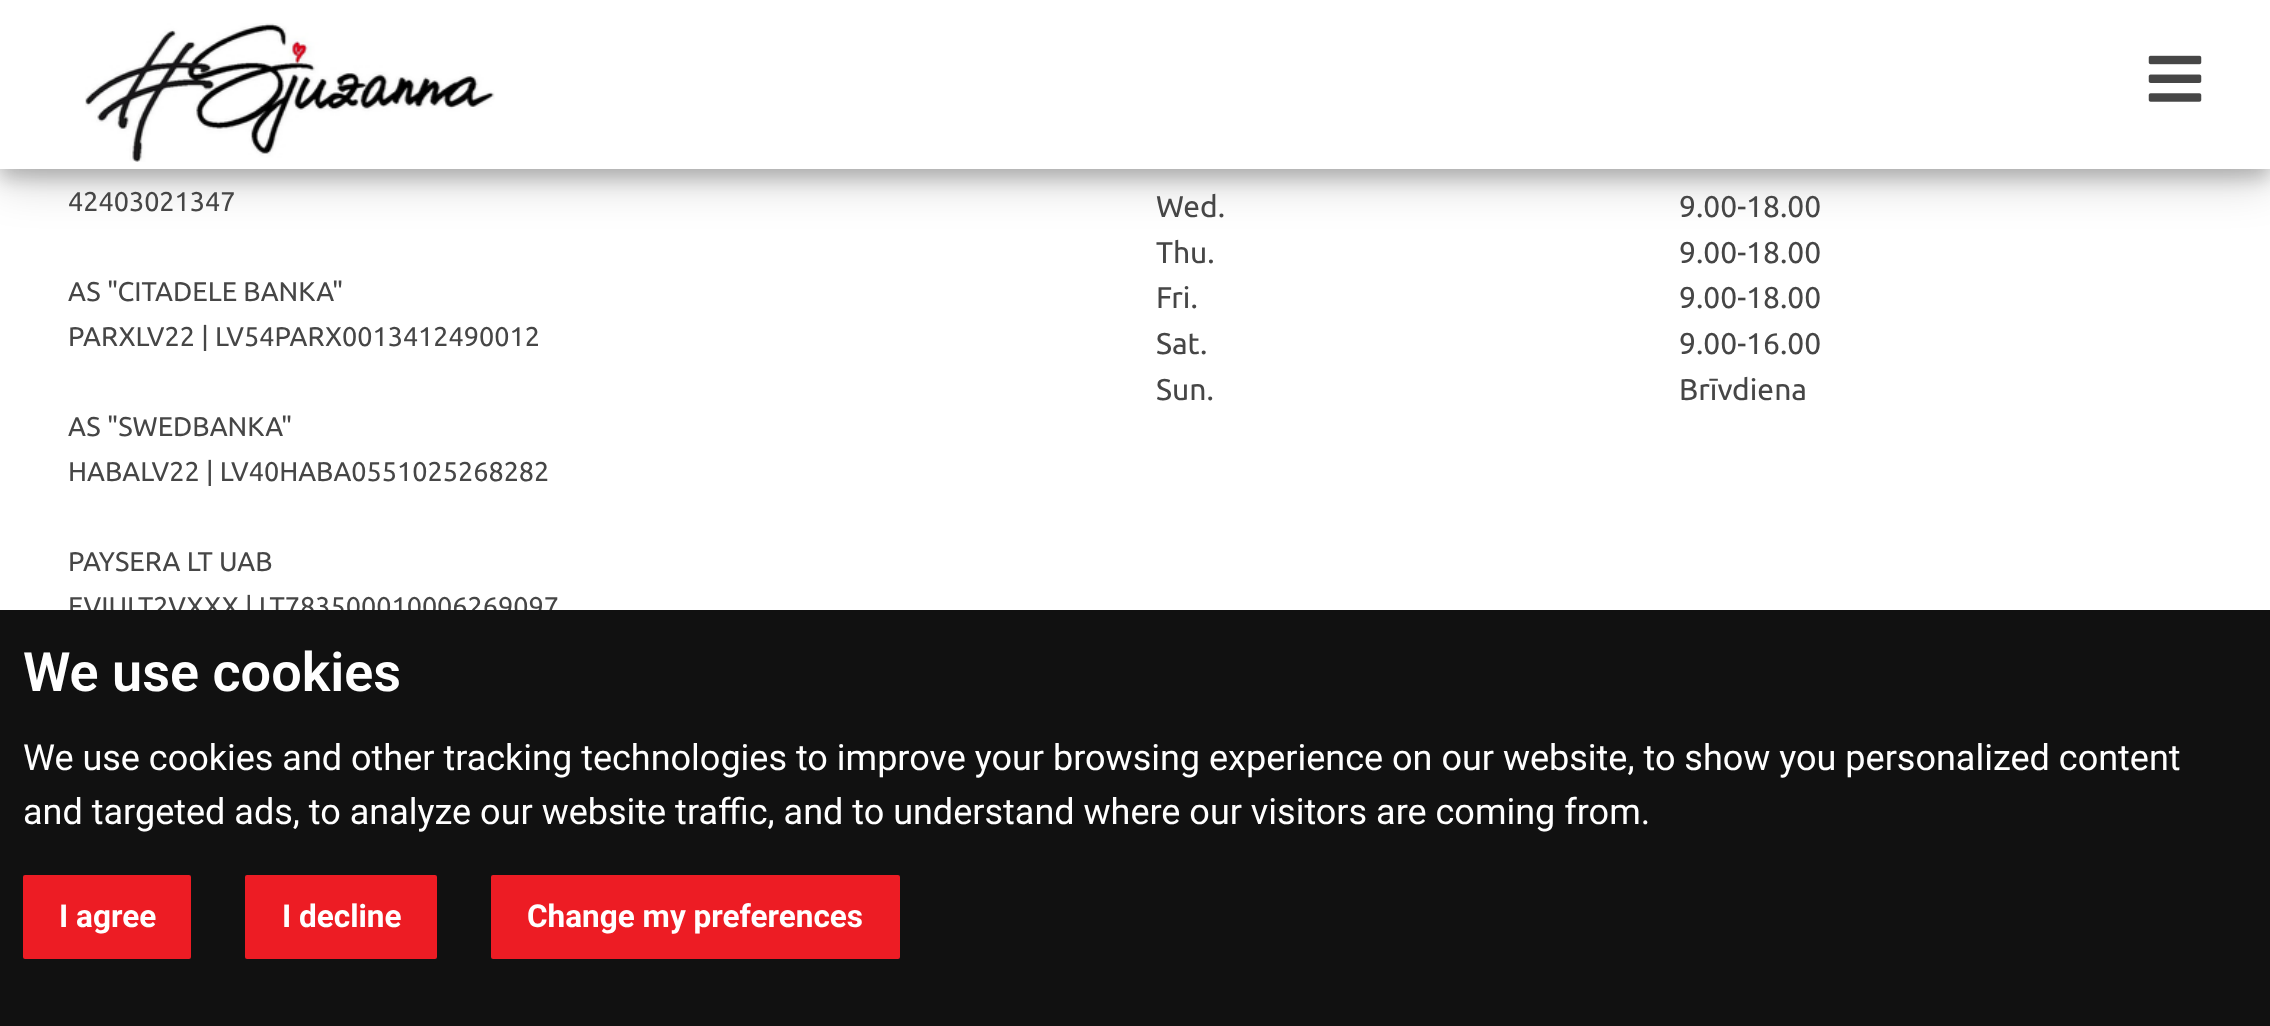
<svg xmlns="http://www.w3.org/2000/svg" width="2270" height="1026">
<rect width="100%" height="100%" fill="#fff"/>
<rect y="-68" width="2270" height="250" fill="#00000030" filter="blur(22.5px)"/>
<rect y="-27" width="2270" height="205" fill="#00000033" filter="blur(9px)"/>
<rect width="2270" height="169" fill="#fff"/>
<image x="85" y="23" width="410" height="139" href="media/1.png"/>
<image x="2148" y="55" width="54" height="47" href="media/2.png"/>
<text x="68" y="211" style="font-family:Ubuntu;font-size:27px;fill:#464646">42403021347</text>
<text x="68" y="301" style="font-family:Ubuntu;font-size:27px;fill:#464646">AS "CITADELE BANKA"</text>
<text x="68" y="346" style="font-family:Ubuntu;font-size:27px;fill:#464646">PARXLV22 | LV54PARX0013412490012</text>
<text x="68" y="436" style="font-family:Ubuntu;font-size:27px;fill:#464646">AS "SWEDBANKA"</text>
<text x="68" y="481" style="font-family:Ubuntu;font-size:27px;fill:#464646">HABALV22 | LV40HABA0551025268282</text>
<text x="68" y="571" style="font-family:Ubuntu;font-size:27px;fill:#464646">PAYSERA LT UAB</text>
<text x="68" y="616" style="font-family:Ubuntu;font-size:27px;fill:#464646">EVIULT2VXXX | LT783500010006269097</text>
<text x="1156" y="217" style="font-family:Ubuntu;font-size:30px;fill:#464646">Wed.</text>
<text x="1679" y="217" style="font-family:Ubuntu;font-size:30px;fill:#464646">9.00-18.00</text>
<text x="1156" y="263" style="font-family:Ubuntu;font-size:30px;fill:#464646">Thu.</text>
<text x="1679" y="263" style="font-family:Ubuntu;font-size:30px;fill:#464646">9.00-18.00</text>
<text x="1156" y="308" style="font-family:Ubuntu;font-size:30px;fill:#464646">Fri.</text>
<text x="1679" y="308" style="font-family:Ubuntu;font-size:30px;fill:#464646">9.00-18.00</text>
<text x="1156" y="354" style="font-family:Ubuntu;font-size:30px;fill:#464646">Sat.</text>
<text x="1679" y="354" style="font-family:Ubuntu;font-size:30px;fill:#464646">9.00-16.00</text>
<text x="1156" y="400" style="font-family:Ubuntu;font-size:30px;fill:#464646">Sun.</text>
<text x="1679" y="400" style="font-family:Ubuntu;font-size:30px;fill:#464646">Brīvdiena</text>
<rect y="610" width="2270" height="416" fill="#111"/>
<text x="23" y="691" style="font-family:Roboto;font-size:54px;font-weight:600;fill:#fff">We use cookies</text>
<text x="23" y="770" style="font-family:Roboto;font-size:36px;fill:#fff">We use cookies and other tracking technologies to improve your browsing experience on our website, to show you personalized content</text>
<text x="23" y="824" style="font-family:Roboto;font-size:36px;fill:#fff">and targeted ads, to analyze our website traffic, and to understand where our visitors are coming from.</text>
<rect x="23" y="875" width="168" height="84" rx="2" fill="#ed1c24"/>
<text x="59" y="927" style="font-family:Roboto;font-size:31.5px;font-weight:bold;fill:#fff">I agree</text>
<rect x="245" y="875" width="192" height="84" rx="2" fill="#ed1c24"/>
<text x="282" y="927" style="font-family:Roboto;font-size:31.5px;font-weight:bold;fill:#fff">I decline</text>
<rect x="491" y="875" width="409" height="84" rx="2" fill="#ed1c24"/>
<text x="527" y="927" style="font-family:Roboto;font-size:31.5px;font-weight:bold;fill:#fff">Change my preferences</text>
</svg>
